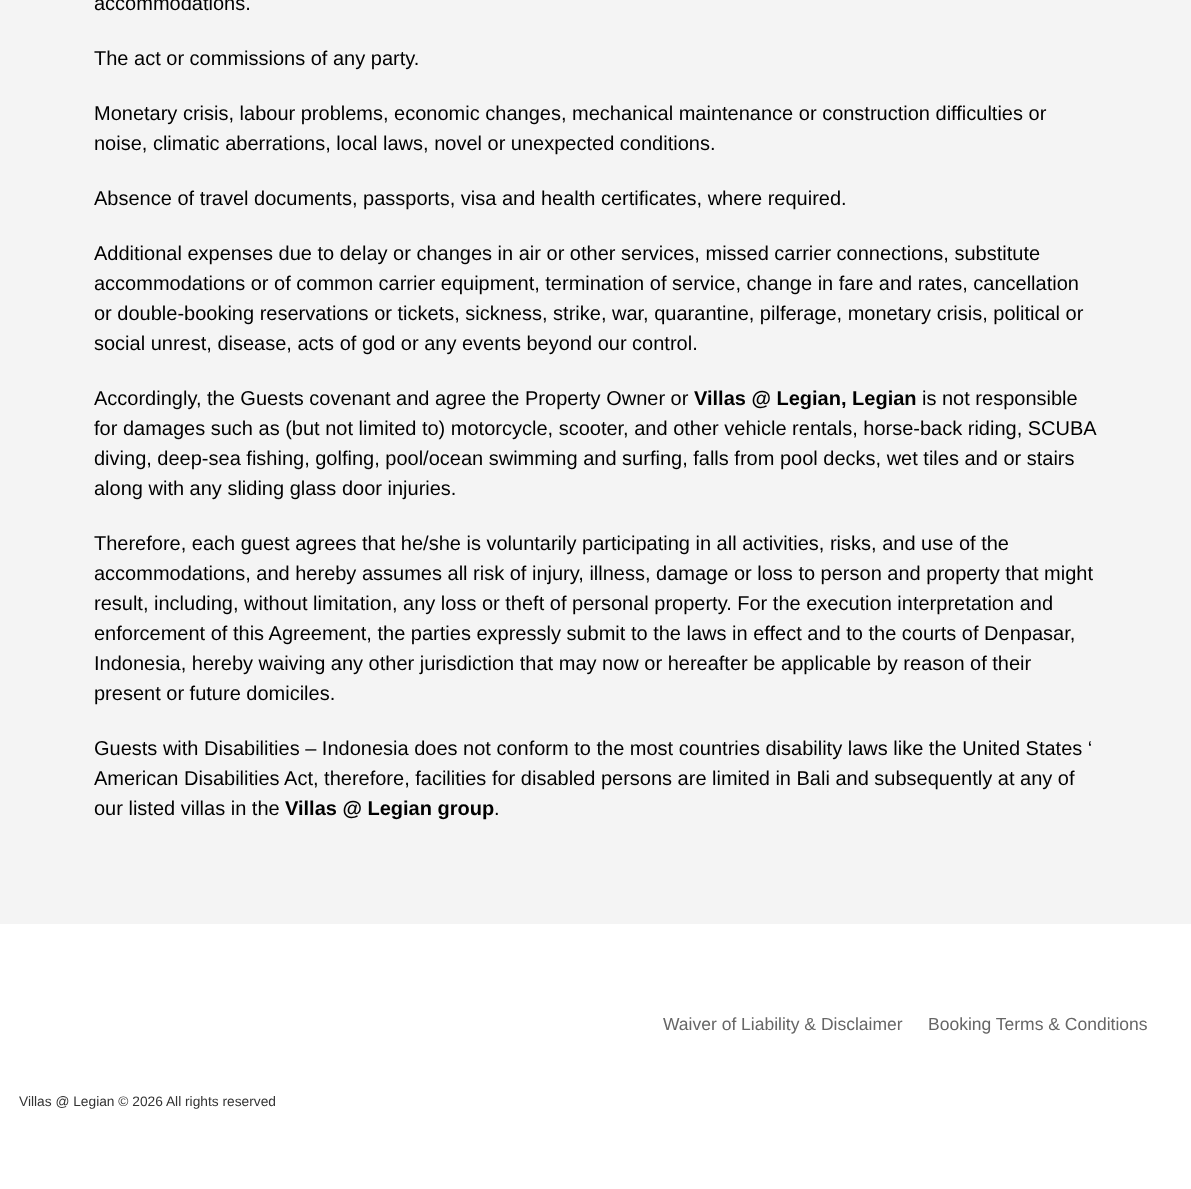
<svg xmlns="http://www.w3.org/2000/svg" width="1191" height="1189">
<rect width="100%" height="100%" fill="#fff"/>
<rect width="1191" height="924" fill="#f4f4f4"/>
<text x="94" y="10" style="font-family:Liberation Sans;font-size:20px;fill:#000">accommodations.</text>
<text x="94" y="65" style="font-family:Liberation Sans;font-size:20px;fill:#000">The act or commissions of any party.</text>
<text x="94" y="120" style="font-family:Liberation Sans;font-size:20px;fill:#000">Monetary crisis, labour problems, economic changes, mechanical maintenance or construction difficulties or</text>
<text x="94" y="150" style="font-family:Liberation Sans;font-size:20px;fill:#000">noise, climatic aberrations, local laws, novel or unexpected conditions.</text>
<text x="94" y="205" style="font-family:Liberation Sans;font-size:20px;fill:#000">Absence of travel documents, passports, visa and health certificates, where required.</text>
<text x="94" y="260" style="font-family:Liberation Sans;font-size:20px;fill:#000">Additional expenses due to delay or changes in air or other services, missed carrier connections, substitute</text>
<text x="94" y="290" style="font-family:Liberation Sans;font-size:20px;fill:#000">accommodations or of common carrier equipment, termination of service, change in fare and rates, cancellation</text>
<text x="94" y="320" style="font-family:Liberation Sans;font-size:20px;fill:#000">or double-booking reservations or tickets, sickness, strike, war, quarantine, pilferage, monetary crisis, political or</text>
<text x="94" y="350" style="font-family:Liberation Sans;font-size:20px;fill:#000">social unrest, disease, acts of god or any events beyond our control.</text>
<text x="94" y="405" style="font-family:Liberation Sans;font-size:20px;fill:#000">Accordingly, the Guests covenant and agree the Property Owner or</text>
<text x="694" y="405" style="font-family:Liberation Sans;font-size:20px;font-weight:bold;fill:#000">Villas @ Legian, Legian</text>
<text x="922" y="405" style="font-family:Liberation Sans;font-size:20px;fill:#000">is not responsible</text>
<text x="94" y="435" style="font-family:Liberation Sans;font-size:20px;fill:#000">for damages such as (but not limited to) motorcycle, scooter, and other vehicle rentals, horse-back riding, SCUBA</text>
<text x="94" y="465" style="font-family:Liberation Sans;font-size:20px;fill:#000">diving, deep-sea fishing, golfing, pool/ocean swimming and surfing, falls from pool decks, wet tiles and or stairs</text>
<text x="94" y="495" style="font-family:Liberation Sans;font-size:20px;fill:#000">along with any sliding glass door injuries.</text>
<text x="94" y="550" style="font-family:Liberation Sans;font-size:20px;fill:#000">Therefore, each guest agrees that he/she is voluntarily participating in all activities, risks, and use of the</text>
<text x="94" y="580" style="font-family:Liberation Sans;font-size:20px;fill:#000">accommodations, and hereby assumes all risk of injury, illness, damage or loss to person and property that might</text>
<text x="94" y="610" style="font-family:Liberation Sans;font-size:20px;fill:#000">result, including, without limitation, any loss or theft of personal property. For the execution interpretation and</text>
<text x="94" y="640" style="font-family:Liberation Sans;font-size:20px;fill:#000">enforcement of this Agreement, the parties expressly submit to the laws in effect and to the courts of Denpasar,</text>
<text x="94" y="670" style="font-family:Liberation Sans;font-size:20px;fill:#000">Indonesia, hereby waiving any other jurisdiction that may now or hereafter be applicable by reason of their</text>
<text x="94" y="700" style="font-family:Liberation Sans;font-size:20px;fill:#000">present or future domiciles.</text>
<text x="94" y="755" style="font-family:Liberation Sans;font-size:20px;fill:#000">Guests with Disabilities – Indonesia does not conform to the most countries disability laws like the United States ‘</text>
<text x="94" y="785" style="font-family:Liberation Sans;font-size:20px;fill:#000">American Disabilities Act, therefore, facilities for disabled persons are limited in Bali and subsequently at any of</text>
<text x="94" y="815" style="font-family:Liberation Sans;font-size:20px;fill:#000">our listed villas in the</text>
<text x="285" y="815" style="font-family:Liberation Sans;font-size:20px;font-weight:bold;fill:#000">Villas @ Legian group</text>
<text x="494" y="815" style="font-family:Liberation Sans;font-size:20px;fill:#000">.</text>
<text x="663" y="1030" style="font-family:Liberation Sans;font-size:17.5px;fill:#666">Waiver of Liability &amp; Disclaimer</text>
<text x="928" y="1030" style="font-family:Liberation Sans;font-size:17.5px;fill:#666">Booking Terms &amp; Conditions</text>
<text x="19" y="1106" style="font-family:Liberation Sans;font-size:13.75px;fill:#333">Villas @ Legian © 2026 All rights reserved</text>
</svg>
